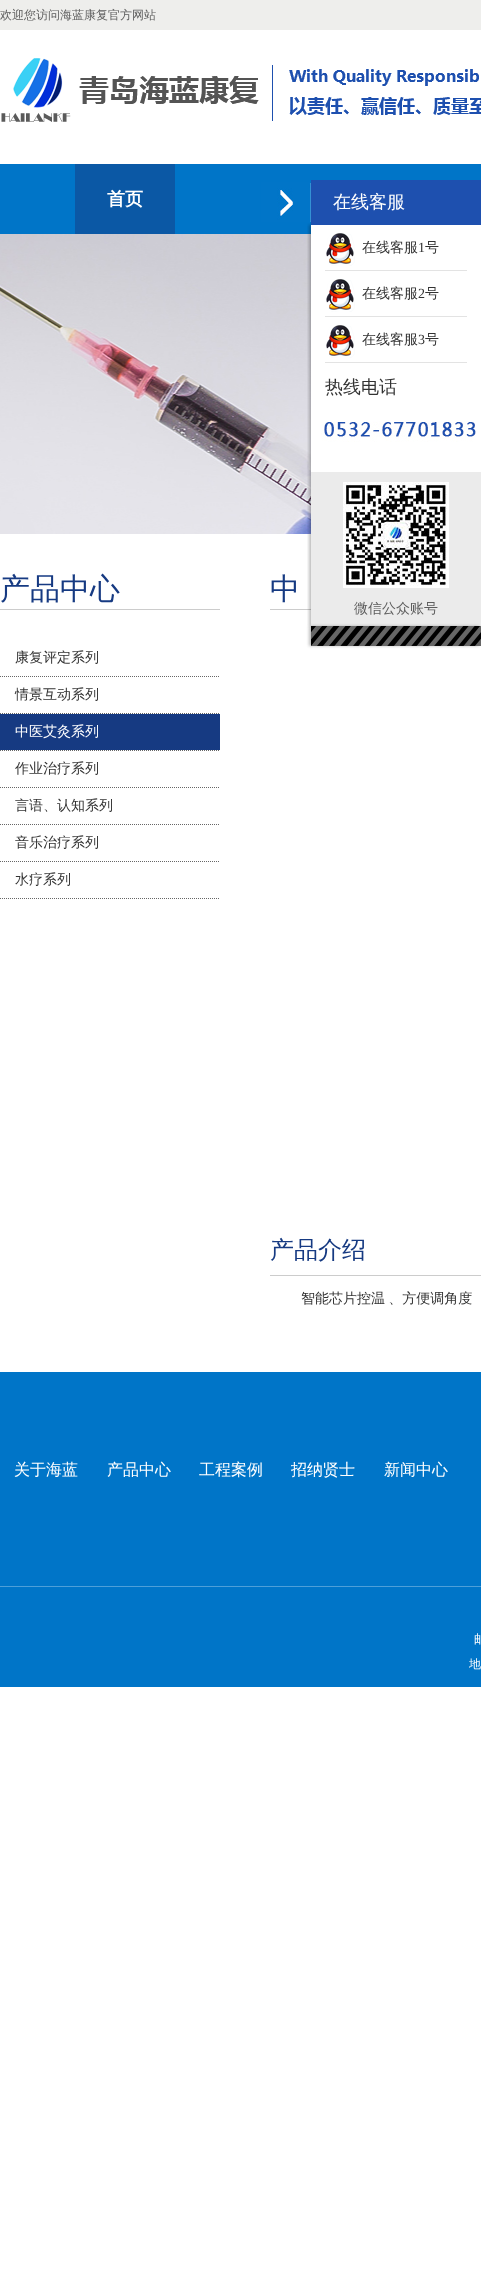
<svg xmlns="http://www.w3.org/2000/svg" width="481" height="2269">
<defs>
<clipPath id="clip1"><rect x="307" y="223" width="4" height="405"/></clipPath>
</defs>
<rect width="100%" height="100%" fill="#fff"/>
<rect width="481" height="30" fill="#eeeeec"/>
<text x="0" y="19" style="font-family:WenQuanYi Zen Hei;font-size:12px;font-weight:500;fill:#5e5e5e">欢迎您访问海蓝康复官方网站</text>
<image x="1" y="58" width="480" height="64" href="media/1.png"/>
<rect y="164" width="481" height="70" fill="#0075c8"/>
<rect x="75" y="164" width="100" height="70" fill="#0b58a5"/>
<text x="107" y="205" style="font-family:WenQuanYi Zen Hei;font-size:18px;font-weight:bold;fill:#fff">首页</text>
<image x="261" y="182" width="50" height="40" href="media/2.png"/>
<rect x="311" y="225" width="170" height="9" fill="#fff"/>
<image x="0" y="234" width="311" height="300" href="media/7.png"/>
<rect x="270" y="609" width="41" height="1" fill="#ccc"/>
<g clip-path="url(#clip1)">
<rect x="309" y="225" width="170" height="401" fill="#00000040" filter="blur(1.5px)"/>
</g>
<rect x="311" y="180" width="170" height="45" fill="#1e50af"/>
<text x="333" y="208" style="font-family:WenQuanYi Zen Hei;font-size:18px;font-weight:500;fill:#fff">在线客服</text>
<rect x="325" y="270" width="142" height="1" fill="#e3e3e3"/>
<image x="326" y="233" width="29" height="33" href="media/3.png"/>
<text x="362" y="252" style="font-family:WenQuanYi Zen Hei;font-size:14px;font-weight:500;fill:#333">在线客服</text>
<text x="418" y="252" style="font-family:Liberation Serif;font-size:14px;fill:#333">1</text>
<text x="425" y="252" style="font-family:WenQuanYi Zen Hei;font-size:14px;font-weight:500;fill:#333">号</text>
<rect x="325" y="316" width="142" height="1" fill="#e3e3e3"/>
<image x="326" y="279" width="29" height="33" href="media/3.png"/>
<text x="362" y="298" style="font-family:WenQuanYi Zen Hei;font-size:14px;font-weight:500;fill:#333">在线客服</text>
<text x="418" y="298" style="font-family:Liberation Serif;font-size:14px;fill:#333">2</text>
<text x="425" y="298" style="font-family:WenQuanYi Zen Hei;font-size:14px;font-weight:500;fill:#333">号</text>
<rect x="325" y="362" width="142" height="1" fill="#e3e3e3"/>
<image x="326" y="325" width="29" height="33" href="media/3.png"/>
<text x="362" y="344" style="font-family:WenQuanYi Zen Hei;font-size:14px;font-weight:500;fill:#333">在线客服</text>
<text x="418" y="344" style="font-family:Liberation Serif;font-size:14px;fill:#333">3</text>
<text x="425" y="344" style="font-family:WenQuanYi Zen Hei;font-size:14px;font-weight:500;fill:#333">号</text>
<text x="325" y="393" style="font-family:WenQuanYi Zen Hei;font-size:18px;font-weight:500;fill:#333">热线电话</text>
<image x="321" y="421" width="155" height="21" href="media/4.png"/>
<rect x="311" y="472" width="170" height="154" fill="#ebebeb"/>
<image x="343" y="482" width="106" height="106" href="media/5.png"/>
<text x="354" y="613" style="font-family:WenQuanYi Zen Hei;font-size:14px;font-weight:500;fill:#5e5e5e">微信公众账号</text>
<rect x="309" y="626" width="170" height="20" fill="#00000040" filter="blur(1.5px)"/>
<image x="311" y="626" width="170" height="20" href="media/6.png"/>
<rect y="609" width="220" height="1" fill="#ccc"/>
<text x="0" y="599" style="font-family:WenQuanYi Zen Hei;font-size:30px;font-weight:500;fill:#163a82">产品中心</text>
<path d="M0 676.5h220" fill="none" stroke="#666" stroke-dasharray="1 1"/>
<text x="15" y="662" style="font-family:WenQuanYi Zen Hei;font-size:14px;font-weight:500;fill:#333">康复评定系列</text>
<path d="M0 713.5h220" fill="none" stroke="#666" stroke-dasharray="1 1"/>
<text x="15" y="699" style="font-family:WenQuanYi Zen Hei;font-size:14px;font-weight:500;fill:#333">情景互动系列</text>
<path d="M0 750.5h220" fill="none" stroke="#666" stroke-dasharray="1 1"/>
<rect y="714" width="220" height="36" fill="#163a82"/>
<text x="15" y="736" style="font-family:WenQuanYi Zen Hei;font-size:14px;font-weight:500;fill:#fff">中医艾灸系列</text>
<path d="M0 787.5h220" fill="none" stroke="#666" stroke-dasharray="1 1"/>
<text x="15" y="773" style="font-family:WenQuanYi Zen Hei;font-size:14px;font-weight:500;fill:#333">作业治疗系列</text>
<path d="M0 824.5h220" fill="none" stroke="#666" stroke-dasharray="1 1"/>
<text x="15" y="810" style="font-family:WenQuanYi Zen Hei;font-size:14px;font-weight:500;fill:#333">言语、认知系列</text>
<path d="M0 861.5h220" fill="none" stroke="#666" stroke-dasharray="1 1"/>
<text x="15" y="847" style="font-family:WenQuanYi Zen Hei;font-size:14px;font-weight:500;fill:#333">音乐治疗系列</text>
<path d="M0 898.5h220" fill="none" stroke="#666" stroke-dasharray="1 1"/>
<text x="15" y="884" style="font-family:WenQuanYi Zen Hei;font-size:14px;font-weight:500;fill:#333">水疗系列</text>
<text x="270" y="599" style="font-family:WenQuanYi Zen Hei;font-size:30px;font-weight:500;fill:#163a82">中</text>
<rect x="270" y="1275" width="211" height="1" fill="#ccc"/>
<text x="270" y="1258" style="font-family:WenQuanYi Zen Hei;font-size:24px;font-weight:500;fill:#163a82">产品介绍</text>
<text x="301" y="1303" word-spacing="-1" style="font-family:WenQuanYi Zen Hei;font-size:14px;font-weight:500;fill:#333">智能芯片控温 、方便调角度</text>
<rect y="1372" width="481" height="315" fill="#0075c8"/>
<text x="14" y="1475" style="font-family:WenQuanYi Zen Hei;font-size:16px;font-weight:500;fill:#fff">关于海蓝</text>
<text x="107" y="1475" style="font-family:WenQuanYi Zen Hei;font-size:16px;font-weight:500;fill:#fff">产品中心</text>
<text x="199" y="1475" style="font-family:WenQuanYi Zen Hei;font-size:16px;font-weight:500;fill:#fff">工程案例</text>
<text x="291" y="1475" style="font-family:WenQuanYi Zen Hei;font-size:16px;font-weight:500;fill:#fff">招纳贤士</text>
<text x="384" y="1475" style="font-family:WenQuanYi Zen Hei;font-size:16px;font-weight:500;fill:#fff">新闻中心</text>
<rect y="1586" width="481" height="1" fill="#4d9fd9"/>
<text x="474" y="1643" style="font-family:WenQuanYi Zen Hei;font-size:12px;font-weight:500;fill:#fff">邮</text>
<text x="469" y="1668" style="font-family:WenQuanYi Zen Hei;font-size:12px;font-weight:500;fill:#fff">地</text>
</svg>
